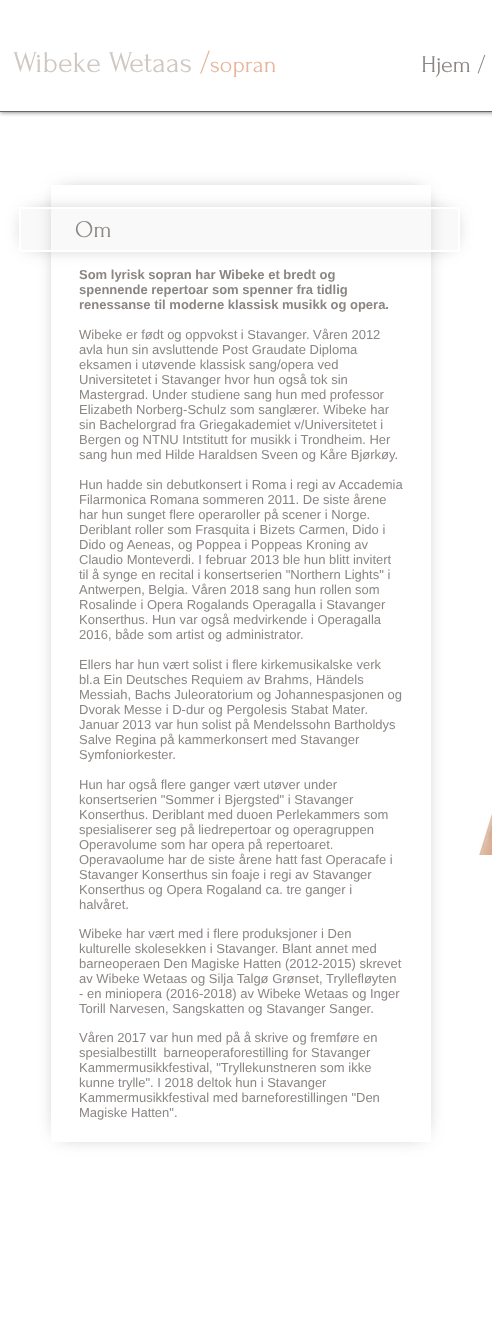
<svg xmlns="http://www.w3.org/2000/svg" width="492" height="1321">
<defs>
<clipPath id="clip1"><rect x="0" y="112" width="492" height="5"/></clipPath>
<clipPath id="clip2"><path d="M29 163h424v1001h-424zm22 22h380v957h-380z" clip-rule="evenodd"/></clipPath>
<clipPath id="clip3"><path d="M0 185h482v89h-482zm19 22h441v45h-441z" clip-rule="evenodd"/></clipPath>
</defs>
<rect width="100%" height="100%" fill="#fff"/>
<g clip-path="url(#clip1)">
<rect width="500" height="112" fill="#00000099" filter="blur(2.5px)"/>
</g>
<rect y="111" width="492" height="1" fill="#666"/>
<text x="13" y="72" style="font-family:Forum;font-size:30px;fill:#cfc7c2">Wibeke Wetaas</text>
<text x="200" y="72" style="font-family:Forum;font-size:30px;fill:#e7b49c">/</text>
<text x="210" y="72" style="font-family:Forum;font-size:24px;fill:#e7b49c">sopran</text>
<text x="421" y="72" style="font-family:Forum;font-size:24px;fill:#8b8683">Hjem /</text>
<g clip-path="url(#clip2)">
<rect x="60" y="194" width="362" height="939" fill="#45444499" filter="blur(10px)"/>
</g>
<g clip-path="url(#clip3)">
<rect x="28" y="216" width="423" height="27" fill="#45444499" filter="blur(10px)"/>
</g>
<rect x="20" y="208" width="439" height="43" fill="#cfc7c21a" stroke="#fff" stroke-width="2"/>
<text x="75" y="237" style="font-family:Forum;font-size:24px;fill:#8b8683">Om</text>
<text x="79" y="279" style="font-family:Liberation Sans;font-size:13px;font-weight:bold;fill:#8b8683">Som lyrisk sopran har Wibeke et bredt og</text>
<text x="79" y="294" style="font-family:Liberation Sans;font-size:13px;font-weight:bold;fill:#8b8683">spennende repertoar som spenner fra tidlig</text>
<text x="79" y="309" style="font-family:Liberation Sans;font-size:13px;font-weight:bold;fill:#8b8683">renessanse til moderne klassisk musikk og opera.</text>
<text x="79" y="339" style="font-family:Liberation Sans;font-size:13px;fill:#8b8683">Wibeke er født og oppvokst i Stavanger. Våren 2012</text>
<text x="79" y="354" style="font-family:Liberation Sans;font-size:13px;fill:#8b8683">avla hun sin avsluttende Post Graudate Diploma</text>
<text x="79" y="369" style="font-family:Liberation Sans;font-size:13px;fill:#8b8683">eksamen i utøvende klassisk sang/opera ved</text>
<text x="79" y="384" style="font-family:Liberation Sans;font-size:13px;fill:#8b8683">Universitetet i Stavanger hvor hun også tok sin</text>
<text x="79" y="399" style="font-family:Liberation Sans;font-size:13px;fill:#8b8683">Mastergrad. Under studiene sang hun med professor</text>
<text x="79" y="414" style="font-family:Liberation Sans;font-size:13px;fill:#8b8683">Elizabeth Norberg-Schulz som sanglærer. Wibeke har</text>
<text x="79" y="429" style="font-family:Liberation Sans;font-size:13px;fill:#8b8683">sin Bachelorgrad fra Griegakademiet v/Universitetet i</text>
<text x="79" y="444" style="font-family:Liberation Sans;font-size:13px;fill:#8b8683">Bergen og NTNU Intstitutt for musikk i Trondheim. Her</text>
<text x="79" y="459" style="font-family:Liberation Sans;font-size:13px;fill:#8b8683">sang hun med Hilde Haraldsen Sveen og Kåre Bjørkøy.</text>
<text x="79" y="489" style="font-family:Liberation Sans;font-size:13px;fill:#8b8683">Hun hadde sin debutkonsert i Roma i regi av Accademia</text>
<text x="79" y="504" style="font-family:Liberation Sans;font-size:13px;fill:#8b8683">Filarmonica Romana sommeren 2011. De siste årene</text>
<text x="79" y="519" style="font-family:Liberation Sans;font-size:13px;fill:#8b8683">har hun sunget flere operaroller på scener i Norge.</text>
<text x="79" y="534" style="font-family:Liberation Sans;font-size:13px;fill:#8b8683">Deriblant roller som Frasquita i Bizets Carmen, Dido i</text>
<text x="79" y="549" style="font-family:Liberation Sans;font-size:13px;fill:#8b8683">Dido og Aeneas, og Poppea i Poppeas Kroning av</text>
<text x="79" y="564" style="font-family:Liberation Sans;font-size:13px;fill:#8b8683">Claudio Monteverdi. I februar 2013 ble hun blitt invitert</text>
<text x="79" y="579" style="font-family:Liberation Sans;font-size:13px;fill:#8b8683">til å synge en recital i konsertserien "Northern Lights" i</text>
<text x="79" y="594" style="font-family:Liberation Sans;font-size:13px;fill:#8b8683">Antwerpen, Belgia. Våren 2018 sang hun rollen som</text>
<text x="79" y="609" style="font-family:Liberation Sans;font-size:13px;fill:#8b8683">Rosalinde i Opera Rogalands Operagalla i Stavanger</text>
<text x="79" y="624" style="font-family:Liberation Sans;font-size:13px;fill:#8b8683">Konserthus. Hun var også medvirkende i Operagalla</text>
<text x="79" y="639" style="font-family:Liberation Sans;font-size:13px;fill:#8b8683">2016, både som artist og administrator.</text>
<text x="79" y="669" style="font-family:Liberation Sans;font-size:13px;fill:#8b8683">Ellers har hun vært solist i flere kirkemusikalske verk</text>
<text x="79" y="684" style="font-family:Liberation Sans;font-size:13px;fill:#8b8683">bl.a Ein Deutsches Requiem av Brahms, Händels</text>
<text x="79" y="699" style="font-family:Liberation Sans;font-size:13px;fill:#8b8683">Messiah, Bachs Juleoratorium og Johannespasjonen og</text>
<text x="79" y="714" style="font-family:Liberation Sans;font-size:13px;fill:#8b8683">Dvorak Messe i D-dur og Pergolesis Stabat Mater.</text>
<text x="79" y="729" style="font-family:Liberation Sans;font-size:13px;fill:#8b8683">Januar 2013 var hun solist på Mendelssohn Bartholdys</text>
<text x="79" y="744" style="font-family:Liberation Sans;font-size:13px;fill:#8b8683">Salve Regina på kammerkonsert med Stavanger</text>
<text x="79" y="759" style="font-family:Liberation Sans;font-size:13px;fill:#8b8683">Symfoniorkester.</text>
<text x="79" y="789" style="font-family:Liberation Sans;font-size:13px;fill:#8b8683">Hun har også flere ganger vært utøver under</text>
<text x="79" y="804" style="font-family:Liberation Sans;font-size:13px;fill:#8b8683">konsertserien "Sommer i Bjergsted" i Stavanger</text>
<text x="79" y="819" style="font-family:Liberation Sans;font-size:13px;fill:#8b8683">Konserthus. Deriblant med duoen Perlekammers som</text>
<text x="79" y="834" style="font-family:Liberation Sans;font-size:13px;fill:#8b8683">spesialiserer seg på liedrepertoar og operagruppen</text>
<text x="79" y="849" style="font-family:Liberation Sans;font-size:13px;fill:#8b8683">Operavolume som har opera på repertoaret.</text>
<text x="79" y="864" style="font-family:Liberation Sans;font-size:13px;fill:#8b8683">Operavaolume har de siste årene hatt fast Operacafe i</text>
<text x="79" y="879" style="font-family:Liberation Sans;font-size:13px;fill:#8b8683">Stavanger Konserthus sin foaje i regi av Stavanger</text>
<text x="79" y="894" style="font-family:Liberation Sans;font-size:13px;fill:#8b8683">Konserthus og Opera Rogaland ca. tre ganger i</text>
<text x="79" y="909" style="font-family:Liberation Sans;font-size:13px;fill:#8b8683">halvåret.</text>
<text x="79" y="938" style="font-family:Liberation Sans;font-size:13px;fill:#8b8683">Wibeke har vært med i flere produksjoner i Den</text>
<text x="79" y="953" style="font-family:Liberation Sans;font-size:13px;fill:#8b8683">kulturelle skolesekken i Stavanger. Blant annet med</text>
<text x="79" y="968" style="font-family:Liberation Sans;font-size:13px;fill:#8b8683">barneoperaen Den Magiske Hatten (2012-2015) skrevet</text>
<text x="79" y="983" style="font-family:Liberation Sans;font-size:13px;fill:#8b8683">av Wibeke Wetaas og Silja Talgø Grønset, Tryllefløyten</text>
<text x="79" y="998" style="font-family:Liberation Sans;font-size:13px;fill:#8b8683">- en miniopera (2016-2018) av Wibeke Wetaas og Inger</text>
<text x="79" y="1013" style="font-family:Liberation Sans;font-size:13px;fill:#8b8683">Torill Narvesen, Sangskatten og Stavanger Sanger.</text>
<text x="79" y="1042" style="font-family:Liberation Sans;font-size:13px;fill:#8b8683">Våren 2017 var hun med på å skrive og fremføre en</text>
<text x="79" y="1057" style="font-family:Liberation Sans;font-size:13px;fill:#8b8683" xml:space="preserve">spesialbestillt  barneoperaforestilling for Stavanger</text>
<text x="79" y="1072" style="font-family:Liberation Sans;font-size:13px;fill:#8b8683">Kammermusikkfestival, "Tryllekunstneren som ikke</text>
<text x="79" y="1087" style="font-family:Liberation Sans;font-size:13px;fill:#8b8683">kunne trylle". I 2018 deltok hun i Stavanger</text>
<text x="79" y="1102" style="font-family:Liberation Sans;font-size:13px;fill:#8b8683">Kammermusikkfestival med barneforestillingen "Den</text>
<text x="79" y="1117" style="font-family:Liberation Sans;font-size:13px;fill:#8b8683">Magiske Hatten".</text>
<image x="479" y="813" width="13" height="42" href="media/1.png"/>
</svg>
